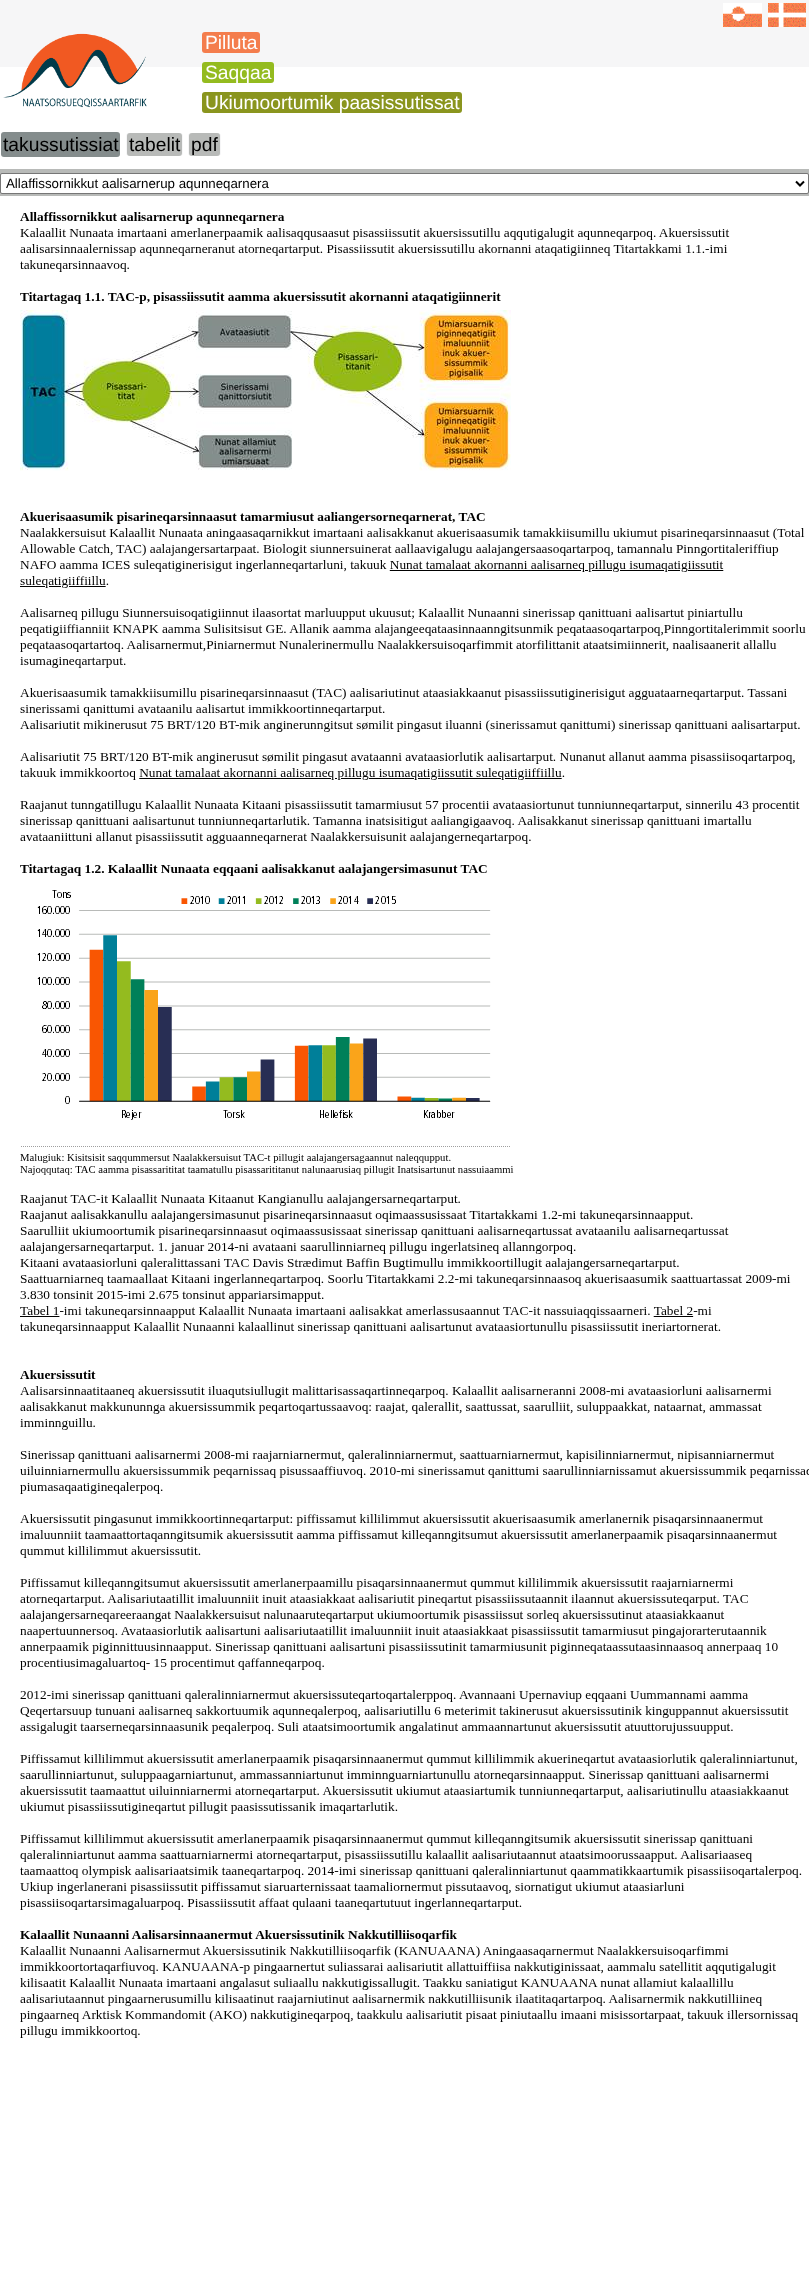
<svg xmlns="http://www.w3.org/2000/svg" width="809" height="2294">
<rect width="100%" height="100%" fill="#fff"/>
<rect width="809" height="67" fill="#f6f6f7"/>
<image x="723" y="3" width="39" height="24" href="media/1.png"/>
<image x="768" y="3" width="38" height="24" href="media/2.png"/>
<image x="3" y="33" width="144" height="75" href="media/3.png"/>
<rect x="202" y="32" width="58" height="21" rx="3" fill="#f47d4d"/>
<text x="205" y="49" style="font-family:Liberation Sans;font-size:19.25px;fill:#fff">Pilluta</text>
<rect x="202" y="62" width="72" height="21" rx="3" fill="#94bb1f"/>
<text x="205" y="79" style="font-family:Liberation Sans;font-size:19.25px;fill:#fff">Saqqaa</text>
<rect x="202" y="92" width="260" height="21" rx="3" fill="#8a951e"/>
<text x="205" y="109" style="font-family:Liberation Sans;font-size:19.25px;fill:#fff">Ukiumoortumik paasissutissat</text>
<rect x="1" y="132" width="119" height="25" rx="3" fill="#848c8c"/>
<text x="3" y="151" style="font-family:Liberation Sans;font-size:19.25px;fill:#000">takussutissiat</text>
<rect x="126" y="133" width="57" height="23" rx="3" fill="#f6f6f7"/>
<rect x="127" y="133" width="55" height="23" rx="3" fill="#b8bab8"/>
<text x="129" y="151" style="font-family:Liberation Sans;font-size:19.25px;fill:#000">tabelit</text>
<rect x="188" y="133" width="33" height="23" rx="3" fill="#f6f6f7"/>
<rect x="189" y="133" width="31" height="23" rx="3" fill="#b8bab8"/>
<text x="191" y="151" style="font-family:Liberation Sans;font-size:19.25px;fill:#000">pdf</text>
<rect y="169" width="809" height="27" fill="#b8bab8"/>
<rect x="0.5" y="173.5" width="808" height="20" rx="1.5" fill="#fff" stroke="#767676"/>
<path d="M796 181.5l4 4l4-4" fill="none" stroke="#000" stroke-width="2"/>
<text x="6" y="188" style="font-family:Liberation Sans;font-size:13.3px;fill:#000">Allaffissornikkut aalisarnerup aqunneqarnera</text>
<image x="20" y="212" width="789" height="1826" href="media/4.png"/>
</svg>
